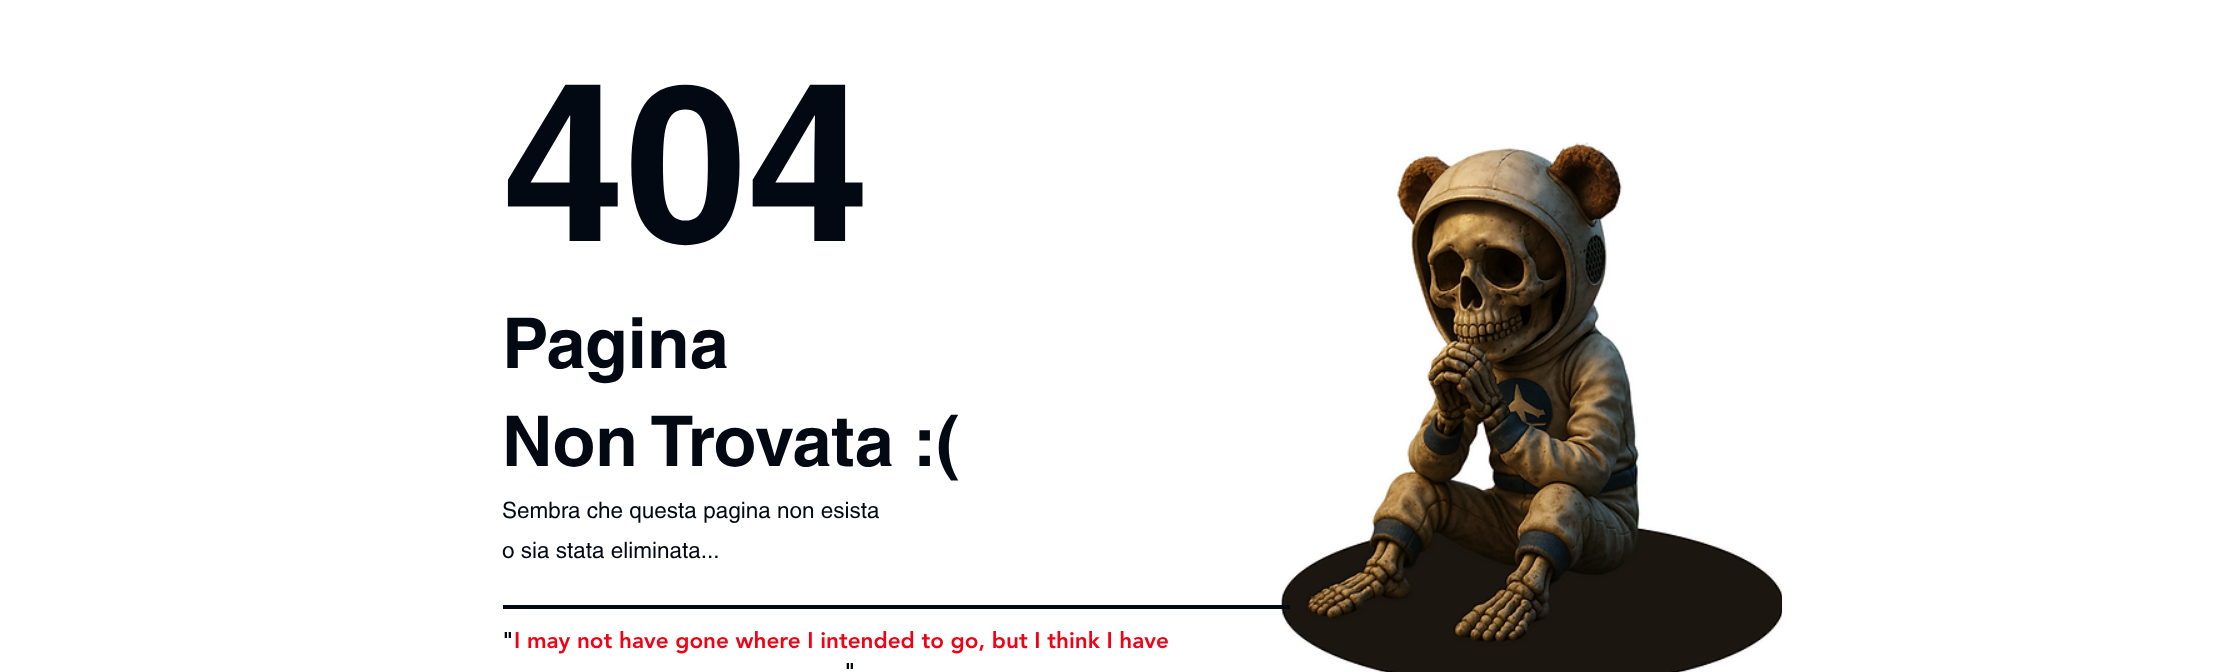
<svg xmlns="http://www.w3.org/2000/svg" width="2228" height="672">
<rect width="100%" height="100%" fill="#fff"/>
<text x="502" y="241" style="font-family:helvetica;font-size:220px;font-weight:bold;fill:#020913">404</text>
<image x="1281" y="141" width="502" height="531" href="media/1.png"/>
<text x="502" y="368" style="font-family:helvetica;font-size:70px;font-weight:bold;fill:#020913">Pagina</text>
<text x="502" y="466" style="font-family:helvetica;font-size:70px;font-weight:bold;fill:#020913">Non Trovata :(</text>
<text x="502" y="518" style="font-family:helvetica;font-size:22.5px;fill:#020913">Sembra che questa pagina non esista</text>
<text x="502" y="558" style="font-family:helvetica;font-size:22.5px;fill:#020913">o sia stata eliminata...</text>
<rect x="503" y="605" width="787" height="4" fill="#020913"/>
<text x="502" y="648" style="font-family:'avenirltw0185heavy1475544';font-size:22.5px;font-weight:900;fill:#020913">"</text>
<text x="514" y="648" style="font-family:'avenirltw0185heavy1475544';font-size:22.5px;font-weight:900;fill:#f00214">I may not have gone where I intended to go, but I think I have</text>
<text x="844" y="679" style="font-family:'avenirltw0185heavy1475544';font-size:22.5px;font-weight:900;fill:#020913">"</text>
</svg>
